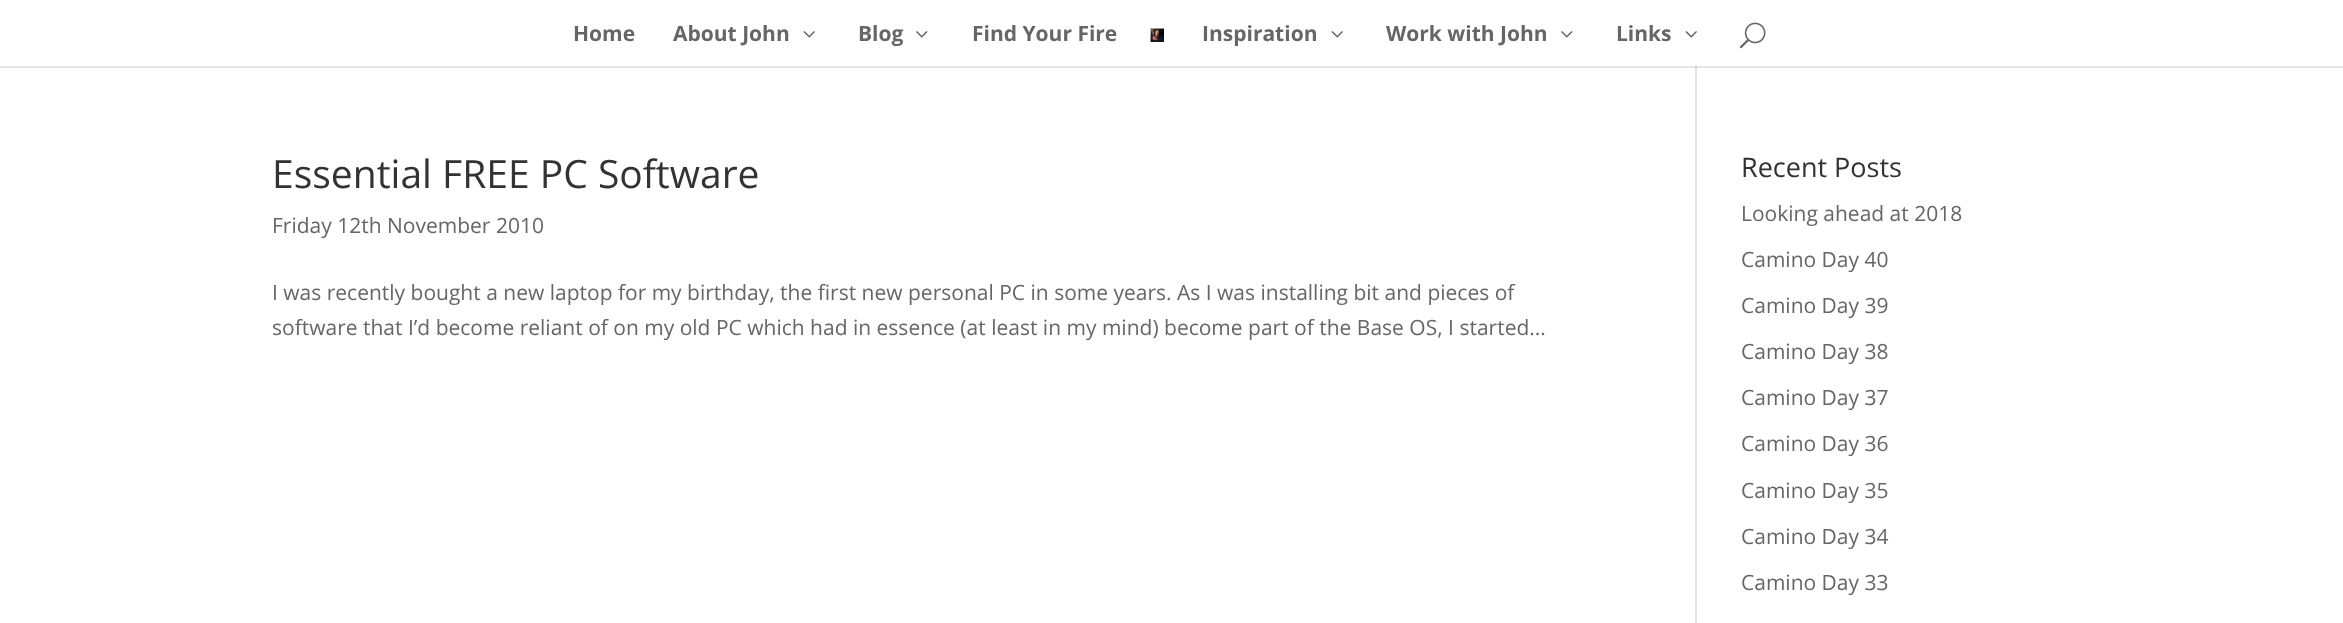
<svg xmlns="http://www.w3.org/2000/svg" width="2343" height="623">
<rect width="100%" height="100%" fill="#fff"/>
<rect y="66" width="2343" height="2" fill="#e6e6e6"/>
<text x="573" y="41" style="font-family:Open Sans;font-size:21px;font-weight:bold;fill:#666">Home</text>
<text x="673" y="41" style="font-family:Open Sans;font-size:21px;font-weight:bold;fill:#666">About John</text>
<image x="803" y="31" width="12" height="7" href="media/1.png"/>
<text x="858" y="41" style="font-family:Open Sans;font-size:21px;font-weight:bold;fill:#666">Blog</text>
<image x="916" y="31" width="12" height="7" href="media/2.png"/>
<text x="972" y="41" style="font-family:Open Sans;font-size:21px;font-weight:bold;fill:#666">Find Your Fire</text>
<image x="1150" y="28" width="14" height="14" href="media/3.png"/>
<text x="1202" y="41" style="font-family:Open Sans;font-size:21px;font-weight:bold;fill:#666">Inspiration</text>
<image x="1331" y="31" width="12" height="7" href="media/1.png"/>
<text x="1386" y="41" style="font-family:Open Sans;font-size:21px;font-weight:bold;fill:#666">Work with John</text>
<image x="1561" y="31" width="12" height="7" href="media/2.png"/>
<text x="1616" y="41" style="font-family:Open Sans;font-size:21px;font-weight:bold;fill:#666">Links</text>
<image x="1685" y="31" width="12" height="7" href="media/1.png"/>
<image x="1739" y="22" width="27" height="27" href="media/4.png"/>
<rect x="1695" y="66" width="2" height="557" fill="#e2e2e2"/>
<rect x="1695" y="66" width="2" height="2" fill="#cbcbcb"/>
<text x="272" y="188" style="font-family:Open Sans;font-size:39px;fill:#333">Essential FREE PC Software</text>
<text x="272" y="233" style="font-family:Open Sans;font-size:21px;fill:#666">Friday 12th November 2010</text>
<text x="272" y="300" style="font-family:Open Sans;font-size:21px;fill:#666">I was recently bought a new laptop for my birthday, the first new personal PC in some years. As I was installing bit and pieces of</text>
<text x="272" y="335" style="font-family:Open Sans;font-size:21px;fill:#666">software that I’d become reliant of on my old PC which had in essence (at least in my mind) become part of the Base OS, I started...</text>
<text x="1741" y="177" style="font-family:Open Sans;font-size:27px;fill:#333">Recent Posts</text>
<text x="1741" y="221" style="font-family:Open Sans;font-size:21px;fill:#666">Looking ahead at 2018</text>
<text x="1741" y="267" style="font-family:Open Sans;font-size:21px;fill:#666">Camino Day 40</text>
<text x="1741" y="313" style="font-family:Open Sans;font-size:21px;fill:#666">Camino Day 39</text>
<text x="1741" y="359" style="font-family:Open Sans;font-size:21px;fill:#666">Camino Day 38</text>
<text x="1741" y="405" style="font-family:Open Sans;font-size:21px;fill:#666">Camino Day 37</text>
<text x="1741" y="451" style="font-family:Open Sans;font-size:21px;fill:#666">Camino Day 36</text>
<text x="1741" y="498" style="font-family:Open Sans;font-size:21px;fill:#666">Camino Day 35</text>
<text x="1741" y="544" style="font-family:Open Sans;font-size:21px;fill:#666">Camino Day 34</text>
<text x="1741" y="590" style="font-family:Open Sans;font-size:21px;fill:#666">Camino Day 33</text>
</svg>
